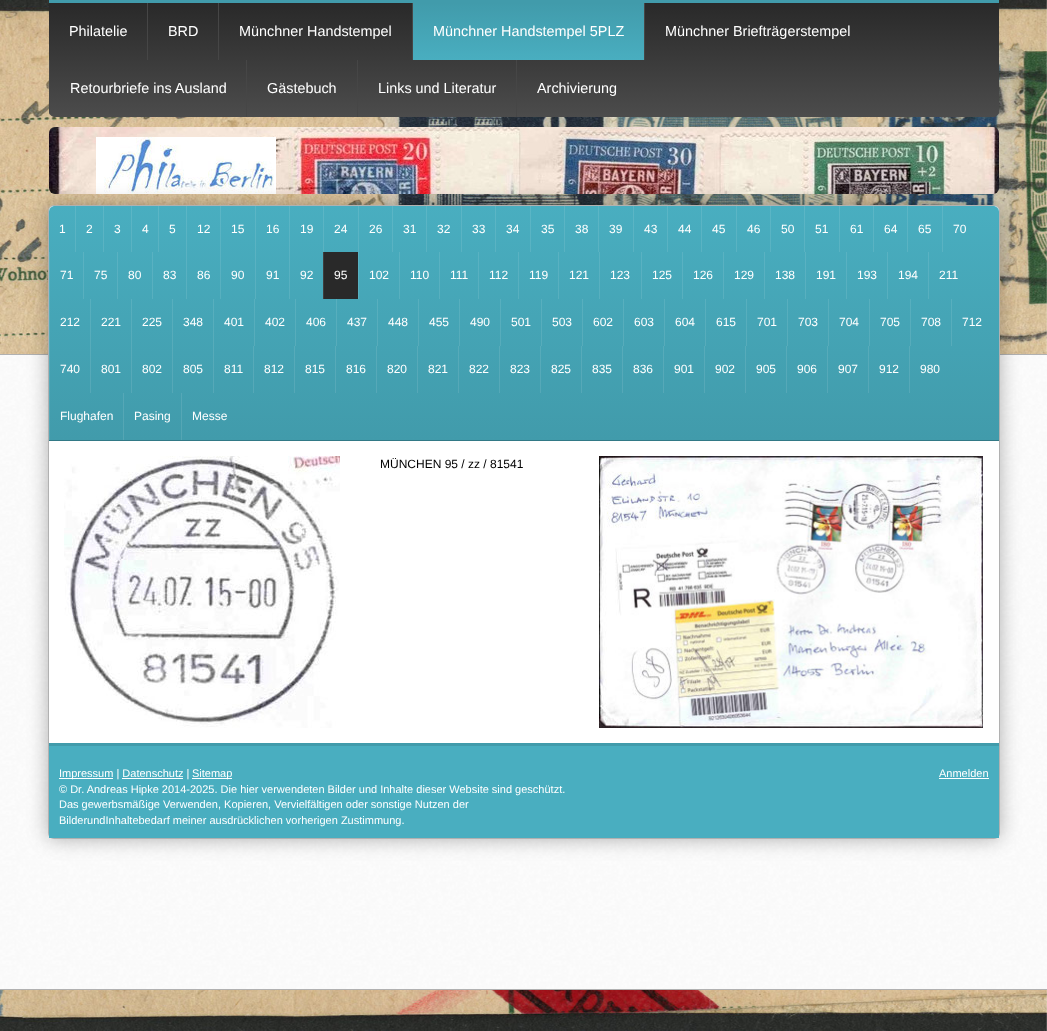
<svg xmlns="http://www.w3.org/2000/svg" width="1047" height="1031">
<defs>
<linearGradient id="g1" gradientUnits="userSpaceOnUse" x1="524" y1="3" x2="524" y2="117"><stop offset="0" stop-color="#292929"/><stop offset="1" stop-color="#4c4c4c"/></linearGradient>
<linearGradient id="g2" gradientUnits="userSpaceOnUse" x1="529" y1="3" x2="529" y2="60"><stop offset="0" stop-color="#419bab"/><stop offset="1" stop-color="#49aec0"/></linearGradient>
<clipPath id="clip1"><path d="M49 3h950v108c0 3.5-2.5 6-6 6h-938c-3.5 0-6-2.5-6-6z"/></clipPath>
<linearGradient id="g3" gradientUnits="userSpaceOnUse" x1="524" y1="206" x2="524" y2="440"><stop offset="0" stop-color="#49aec0"/><stop offset="1" stop-color="#419bab"/></linearGradient>
<clipPath id="clip2"><rect x="59" y="766" width="930" height="62"/></clipPath>
</defs>
<rect width="100%" height="100%" fill="#fff"/>
<image x="0" y="0" width="1047" height="1031" href="media/1.png"/>
<path d="M49 3h950v108c0 3.5-2.5 6-6 6h-938c-3.5 0-6-2.5-6-6z" fill="url(#g1)"/>
<rect x="49" width="950" height="3" fill="#419bab"/>
<text x="69" y="36" style="font-family:Liberation Sans;font-size:14.4px;fill:#fff">Philatelie</text>
<rect x="147" y="3" width="1" height="57" fill="#464646"/>
<text x="168" y="36" style="font-family:Liberation Sans;font-size:14.4px;fill:#fff">BRD</text>
<rect x="218" y="3" width="1" height="57" fill="#464646"/>
<text x="239" y="36" style="font-family:Liberation Sans;font-size:14.4px;fill:#fff">Münchner Handstempel</text>
<rect x="413" y="3" width="231" height="57" fill="url(#g2)"/>
<rect x="412" y="3" width="1" height="57" fill="#464646"/>
<text x="433" y="36" style="font-family:Liberation Sans;font-size:14.4px;fill:#fff">Münchner Handstempel 5PLZ</text>
<rect x="644" y="3" width="1" height="57" fill="#464646"/>
<text x="665" y="36" style="font-family:Liberation Sans;font-size:14.4px;fill:#fff">Münchner Briefträgerstempel</text>
<g clip-path="url(#clip1)">
<rect x="49" y="60" width="1" height="57" fill="#464646"/>
</g>
<text x="70" y="93" style="font-family:Liberation Sans;font-size:14.4px;fill:#fff">Retourbriefe ins Ausland</text>
<rect x="246" y="60" width="1" height="57" fill="#464646"/>
<text x="267" y="93" style="font-family:Liberation Sans;font-size:14.4px;fill:#fff">Gästebuch</text>
<rect x="357" y="60" width="1" height="57" fill="#464646"/>
<text x="378" y="93" style="font-family:Liberation Sans;font-size:14.4px;fill:#fff">Links und Literatur</text>
<rect x="516" y="60" width="1" height="57" fill="#464646"/>
<text x="537" y="93" style="font-family:Liberation Sans;font-size:14.4px;fill:#fff">Archivierung</text>
<image x="49" y="127" width="950" height="67" href="media/2.png"/>
<rect x="96" y="137" width="180" height="57" fill="#fff"/>
<image x="104" y="137" width="170" height="57" href="media/3.png"/>
<image x="0" y="355" width="1047" height="634" href="media/4.png"/>
<rect y="354" width="1047" height="1" fill="#b1b1b1"/>
<rect y="989" width="1047" height="1" fill="#b1b1b1"/>
<rect x="48" y="205" width="952" height="634" rx="6" fill="#0000004d" filter="blur(10px)"/>
<rect x="48.5" y="205.5" width="951" height="633" rx="5.5" fill="#fff" stroke="#b1b1b1"/>
<path d="M55 206h938c3.5 0 6 2.5 6 6v228h-950v-228c0-3.5 2.5-6 6-6z" fill="url(#g3)"/>
<rect x="49" y="440" width="950" height="1" fill="#327986"/>
<text x="59" y="233" style="font-family:Liberation Sans;font-size:12px;fill:#fff">1</text>
<rect x="75" y="206" width="1" height="46" fill="#ffffff1a"/>
<text x="86" y="233" style="font-family:Liberation Sans;font-size:12px;fill:#fff">2</text>
<rect x="103" y="206" width="1" height="46" fill="#ffffff1a"/>
<text x="114" y="233" style="font-family:Liberation Sans;font-size:12px;fill:#fff">3</text>
<rect x="131" y="206" width="1" height="46" fill="#ffffff1a"/>
<text x="142" y="233" style="font-family:Liberation Sans;font-size:12px;fill:#fff">4</text>
<rect x="158" y="206" width="1" height="46" fill="#ffffff1a"/>
<text x="169" y="233" style="font-family:Liberation Sans;font-size:12px;fill:#fff">5</text>
<rect x="186" y="206" width="1" height="46" fill="#ffffff1a"/>
<text x="197" y="233" style="font-family:Liberation Sans;font-size:12px;fill:#fff">12</text>
<rect x="220" y="206" width="1" height="46" fill="#ffffff1a"/>
<text x="231" y="233" style="font-family:Liberation Sans;font-size:12px;fill:#fff">15</text>
<rect x="255" y="206" width="1" height="46" fill="#ffffff1a"/>
<text x="266" y="233" style="font-family:Liberation Sans;font-size:12px;fill:#fff">16</text>
<rect x="289" y="206" width="1" height="46" fill="#ffffff1a"/>
<text x="300" y="233" style="font-family:Liberation Sans;font-size:12px;fill:#fff">19</text>
<rect x="323" y="206" width="1" height="46" fill="#ffffff1a"/>
<text x="334" y="233" style="font-family:Liberation Sans;font-size:12px;fill:#fff">24</text>
<rect x="358" y="206" width="1" height="46" fill="#ffffff1a"/>
<text x="369" y="233" style="font-family:Liberation Sans;font-size:12px;fill:#fff">26</text>
<rect x="392" y="206" width="1" height="46" fill="#ffffff1a"/>
<text x="403" y="233" style="font-family:Liberation Sans;font-size:12px;fill:#fff">31</text>
<rect x="426" y="206" width="1" height="46" fill="#ffffff1a"/>
<text x="437" y="233" style="font-family:Liberation Sans;font-size:12px;fill:#fff">32</text>
<rect x="461" y="206" width="1" height="46" fill="#ffffff1a"/>
<text x="472" y="233" style="font-family:Liberation Sans;font-size:12px;fill:#fff">33</text>
<rect x="495" y="206" width="1" height="46" fill="#ffffff1a"/>
<text x="506" y="233" style="font-family:Liberation Sans;font-size:12px;fill:#fff">34</text>
<rect x="530" y="206" width="1" height="46" fill="#ffffff1a"/>
<text x="541" y="233" style="font-family:Liberation Sans;font-size:12px;fill:#fff">35</text>
<rect x="564" y="206" width="1" height="46" fill="#ffffff1a"/>
<text x="575" y="233" style="font-family:Liberation Sans;font-size:12px;fill:#fff">38</text>
<rect x="598" y="206" width="1" height="46" fill="#ffffff1a"/>
<text x="609" y="233" style="font-family:Liberation Sans;font-size:12px;fill:#fff">39</text>
<rect x="633" y="206" width="1" height="46" fill="#ffffff1a"/>
<text x="644" y="233" style="font-family:Liberation Sans;font-size:12px;fill:#fff">43</text>
<rect x="667" y="206" width="1" height="46" fill="#ffffff1a"/>
<text x="678" y="233" style="font-family:Liberation Sans;font-size:12px;fill:#fff">44</text>
<rect x="701" y="206" width="1" height="46" fill="#ffffff1a"/>
<text x="712" y="233" style="font-family:Liberation Sans;font-size:12px;fill:#fff">45</text>
<rect x="736" y="206" width="1" height="46" fill="#ffffff1a"/>
<text x="747" y="233" style="font-family:Liberation Sans;font-size:12px;fill:#fff">46</text>
<rect x="770" y="206" width="1" height="46" fill="#ffffff1a"/>
<text x="781" y="233" style="font-family:Liberation Sans;font-size:12px;fill:#fff">50</text>
<rect x="804" y="206" width="1" height="46" fill="#ffffff1a"/>
<text x="815" y="233" style="font-family:Liberation Sans;font-size:12px;fill:#fff">51</text>
<rect x="839" y="206" width="1" height="46" fill="#ffffff1a"/>
<text x="850" y="233" style="font-family:Liberation Sans;font-size:12px;fill:#fff">61</text>
<rect x="873" y="206" width="1" height="46" fill="#ffffff1a"/>
<text x="884" y="233" style="font-family:Liberation Sans;font-size:12px;fill:#fff">64</text>
<rect x="907" y="206" width="1" height="46" fill="#ffffff1a"/>
<text x="918" y="233" style="font-family:Liberation Sans;font-size:12px;fill:#fff">65</text>
<rect x="942" y="206" width="1" height="46" fill="#ffffff1a"/>
<text x="953" y="233" style="font-family:Liberation Sans;font-size:12px;fill:#fff">70</text>
<rect x="49" y="252" width="1" height="47" fill="#ffffff1a"/>
<text x="60" y="279" style="font-family:Liberation Sans;font-size:12px;fill:#fff">71</text>
<rect x="83" y="252" width="1" height="47" fill="#ffffff1a"/>
<text x="94" y="279" style="font-family:Liberation Sans;font-size:12px;fill:#fff">75</text>
<rect x="117" y="252" width="1" height="47" fill="#ffffff1a"/>
<text x="128" y="279" style="font-family:Liberation Sans;font-size:12px;fill:#fff">80</text>
<rect x="152" y="252" width="1" height="47" fill="#ffffff1a"/>
<text x="163" y="279" style="font-family:Liberation Sans;font-size:12px;fill:#fff">83</text>
<rect x="186" y="252" width="1" height="47" fill="#ffffff1a"/>
<text x="197" y="279" style="font-family:Liberation Sans;font-size:12px;fill:#fff">86</text>
<rect x="220" y="252" width="1" height="47" fill="#ffffff1a"/>
<text x="231" y="279" style="font-family:Liberation Sans;font-size:12px;fill:#fff">90</text>
<rect x="255" y="252" width="1" height="47" fill="#ffffff1a"/>
<text x="266" y="279" style="font-family:Liberation Sans;font-size:12px;fill:#fff">91</text>
<rect x="289" y="252" width="1" height="47" fill="#ffffff1a"/>
<text x="300" y="279" style="font-family:Liberation Sans;font-size:12px;fill:#fff">92</text>
<rect x="324" y="252" width="34" height="47" fill="#292929"/>
<rect x="323" y="252" width="1" height="47" fill="#3e3e3e"/>
<text x="334" y="279" style="font-family:Liberation Sans;font-size:12px;fill:#fff">95</text>
<rect x="358" y="252" width="1" height="47" fill="#ffffff1a"/>
<text x="369" y="279" style="font-family:Liberation Sans;font-size:12px;fill:#fff">102</text>
<rect x="399" y="252" width="1" height="47" fill="#ffffff1a"/>
<text x="410" y="279" style="font-family:Liberation Sans;font-size:12px;fill:#fff">110</text>
<rect x="439" y="252" width="1" height="47" fill="#ffffff1a"/>
<text x="450" y="279" style="font-family:Liberation Sans;font-size:12px;fill:#fff">111</text>
<rect x="478" y="252" width="1" height="47" fill="#ffffff1a"/>
<text x="489" y="279" style="font-family:Liberation Sans;font-size:12px;fill:#fff">112</text>
<rect x="518" y="252" width="1" height="47" fill="#ffffff1a"/>
<text x="529" y="279" style="font-family:Liberation Sans;font-size:12px;fill:#fff">119</text>
<rect x="558" y="252" width="1" height="47" fill="#ffffff1a"/>
<text x="569" y="279" style="font-family:Liberation Sans;font-size:12px;fill:#fff">121</text>
<rect x="599" y="252" width="1" height="47" fill="#ffffff1a"/>
<text x="610" y="279" style="font-family:Liberation Sans;font-size:12px;fill:#fff">123</text>
<rect x="641" y="252" width="1" height="47" fill="#ffffff1a"/>
<text x="652" y="279" style="font-family:Liberation Sans;font-size:12px;fill:#fff">125</text>
<rect x="682" y="252" width="1" height="47" fill="#ffffff1a"/>
<text x="693" y="279" style="font-family:Liberation Sans;font-size:12px;fill:#fff">126</text>
<rect x="723" y="252" width="1" height="47" fill="#ffffff1a"/>
<text x="734" y="279" style="font-family:Liberation Sans;font-size:12px;fill:#fff">129</text>
<rect x="764" y="252" width="1" height="47" fill="#ffffff1a"/>
<text x="775" y="279" style="font-family:Liberation Sans;font-size:12px;fill:#fff">138</text>
<rect x="805" y="252" width="1" height="47" fill="#ffffff1a"/>
<text x="816" y="279" style="font-family:Liberation Sans;font-size:12px;fill:#fff">191</text>
<rect x="846" y="252" width="1" height="47" fill="#ffffff1a"/>
<text x="857" y="279" style="font-family:Liberation Sans;font-size:12px;fill:#fff">193</text>
<rect x="887" y="252" width="1" height="47" fill="#ffffff1a"/>
<text x="898" y="279" style="font-family:Liberation Sans;font-size:12px;fill:#fff">194</text>
<rect x="928" y="252" width="1" height="47" fill="#ffffff1a"/>
<text x="939" y="279" style="font-family:Liberation Sans;font-size:12px;fill:#fff">211</text>
<rect x="49" y="299" width="1" height="47" fill="#ffffff1a"/>
<text x="60" y="326" style="font-family:Liberation Sans;font-size:12px;fill:#fff">212</text>
<rect x="90" y="299" width="1" height="47" fill="#ffffff1a"/>
<text x="101" y="326" style="font-family:Liberation Sans;font-size:12px;fill:#fff">221</text>
<rect x="131" y="299" width="1" height="47" fill="#ffffff1a"/>
<text x="142" y="326" style="font-family:Liberation Sans;font-size:12px;fill:#fff">225</text>
<rect x="172" y="299" width="1" height="47" fill="#ffffff1a"/>
<text x="183" y="326" style="font-family:Liberation Sans;font-size:12px;fill:#fff">348</text>
<rect x="213" y="299" width="1" height="47" fill="#ffffff1a"/>
<text x="224" y="326" style="font-family:Liberation Sans;font-size:12px;fill:#fff">401</text>
<rect x="254" y="299" width="1" height="47" fill="#ffffff1a"/>
<text x="265" y="326" style="font-family:Liberation Sans;font-size:12px;fill:#fff">402</text>
<rect x="295" y="299" width="1" height="47" fill="#ffffff1a"/>
<text x="306" y="326" style="font-family:Liberation Sans;font-size:12px;fill:#fff">406</text>
<rect x="336" y="299" width="1" height="47" fill="#ffffff1a"/>
<text x="347" y="326" style="font-family:Liberation Sans;font-size:12px;fill:#fff">437</text>
<rect x="377" y="299" width="1" height="47" fill="#ffffff1a"/>
<text x="388" y="326" style="font-family:Liberation Sans;font-size:12px;fill:#fff">448</text>
<rect x="418" y="299" width="1" height="47" fill="#ffffff1a"/>
<text x="429" y="326" style="font-family:Liberation Sans;font-size:12px;fill:#fff">455</text>
<rect x="459" y="299" width="1" height="47" fill="#ffffff1a"/>
<text x="470" y="326" style="font-family:Liberation Sans;font-size:12px;fill:#fff">490</text>
<rect x="500" y="299" width="1" height="47" fill="#ffffff1a"/>
<text x="511" y="326" style="font-family:Liberation Sans;font-size:12px;fill:#fff">501</text>
<rect x="541" y="299" width="1" height="47" fill="#ffffff1a"/>
<text x="552" y="326" style="font-family:Liberation Sans;font-size:12px;fill:#fff">503</text>
<rect x="582" y="299" width="1" height="47" fill="#ffffff1a"/>
<text x="593" y="326" style="font-family:Liberation Sans;font-size:12px;fill:#fff">602</text>
<rect x="623" y="299" width="1" height="47" fill="#ffffff1a"/>
<text x="634" y="326" style="font-family:Liberation Sans;font-size:12px;fill:#fff">603</text>
<rect x="664" y="299" width="1" height="47" fill="#ffffff1a"/>
<text x="675" y="326" style="font-family:Liberation Sans;font-size:12px;fill:#fff">604</text>
<rect x="705" y="299" width="1" height="47" fill="#ffffff1a"/>
<text x="716" y="326" style="font-family:Liberation Sans;font-size:12px;fill:#fff">615</text>
<rect x="746" y="299" width="1" height="47" fill="#ffffff1a"/>
<text x="757" y="326" style="font-family:Liberation Sans;font-size:12px;fill:#fff">701</text>
<rect x="787" y="299" width="1" height="47" fill="#ffffff1a"/>
<text x="798" y="326" style="font-family:Liberation Sans;font-size:12px;fill:#fff">703</text>
<rect x="828" y="299" width="1" height="47" fill="#ffffff1a"/>
<text x="839" y="326" style="font-family:Liberation Sans;font-size:12px;fill:#fff">704</text>
<rect x="869" y="299" width="1" height="47" fill="#ffffff1a"/>
<text x="880" y="326" style="font-family:Liberation Sans;font-size:12px;fill:#fff">705</text>
<rect x="910" y="299" width="1" height="47" fill="#ffffff1a"/>
<text x="921" y="326" style="font-family:Liberation Sans;font-size:12px;fill:#fff">708</text>
<rect x="951" y="299" width="1" height="47" fill="#ffffff1a"/>
<text x="962" y="326" style="font-family:Liberation Sans;font-size:12px;fill:#fff">712</text>
<rect x="49" y="346" width="1" height="47" fill="#ffffff1a"/>
<text x="60" y="373" style="font-family:Liberation Sans;font-size:12px;fill:#fff">740</text>
<rect x="90" y="346" width="1" height="47" fill="#ffffff1a"/>
<text x="101" y="373" style="font-family:Liberation Sans;font-size:12px;fill:#fff">801</text>
<rect x="131" y="346" width="1" height="47" fill="#ffffff1a"/>
<text x="142" y="373" style="font-family:Liberation Sans;font-size:12px;fill:#fff">802</text>
<rect x="172" y="346" width="1" height="47" fill="#ffffff1a"/>
<text x="183" y="373" style="font-family:Liberation Sans;font-size:12px;fill:#fff">805</text>
<rect x="213" y="346" width="1" height="47" fill="#ffffff1a"/>
<text x="224" y="373" style="font-family:Liberation Sans;font-size:12px;fill:#fff">811</text>
<rect x="253" y="346" width="1" height="47" fill="#ffffff1a"/>
<text x="264" y="373" style="font-family:Liberation Sans;font-size:12px;fill:#fff">812</text>
<rect x="294" y="346" width="1" height="47" fill="#ffffff1a"/>
<text x="305" y="373" style="font-family:Liberation Sans;font-size:12px;fill:#fff">815</text>
<rect x="335" y="346" width="1" height="47" fill="#ffffff1a"/>
<text x="346" y="373" style="font-family:Liberation Sans;font-size:12px;fill:#fff">816</text>
<rect x="376" y="346" width="1" height="47" fill="#ffffff1a"/>
<text x="387" y="373" style="font-family:Liberation Sans;font-size:12px;fill:#fff">820</text>
<rect x="417" y="346" width="1" height="47" fill="#ffffff1a"/>
<text x="428" y="373" style="font-family:Liberation Sans;font-size:12px;fill:#fff">821</text>
<rect x="458" y="346" width="1" height="47" fill="#ffffff1a"/>
<text x="469" y="373" style="font-family:Liberation Sans;font-size:12px;fill:#fff">822</text>
<rect x="499" y="346" width="1" height="47" fill="#ffffff1a"/>
<text x="510" y="373" style="font-family:Liberation Sans;font-size:12px;fill:#fff">823</text>
<rect x="540" y="346" width="1" height="47" fill="#ffffff1a"/>
<text x="551" y="373" style="font-family:Liberation Sans;font-size:12px;fill:#fff">825</text>
<rect x="581" y="346" width="1" height="47" fill="#ffffff1a"/>
<text x="592" y="373" style="font-family:Liberation Sans;font-size:12px;fill:#fff">835</text>
<rect x="622" y="346" width="1" height="47" fill="#ffffff1a"/>
<text x="633" y="373" style="font-family:Liberation Sans;font-size:12px;fill:#fff">836</text>
<rect x="663" y="346" width="1" height="47" fill="#ffffff1a"/>
<text x="674" y="373" style="font-family:Liberation Sans;font-size:12px;fill:#fff">901</text>
<rect x="704" y="346" width="1" height="47" fill="#ffffff1a"/>
<text x="715" y="373" style="font-family:Liberation Sans;font-size:12px;fill:#fff">902</text>
<rect x="745" y="346" width="1" height="47" fill="#ffffff1a"/>
<text x="756" y="373" style="font-family:Liberation Sans;font-size:12px;fill:#fff">905</text>
<rect x="786" y="346" width="1" height="47" fill="#ffffff1a"/>
<text x="797" y="373" style="font-family:Liberation Sans;font-size:12px;fill:#fff">906</text>
<rect x="827" y="346" width="1" height="47" fill="#ffffff1a"/>
<text x="838" y="373" style="font-family:Liberation Sans;font-size:12px;fill:#fff">907</text>
<rect x="868" y="346" width="1" height="47" fill="#ffffff1a"/>
<text x="879" y="373" style="font-family:Liberation Sans;font-size:12px;fill:#fff">912</text>
<rect x="909" y="346" width="1" height="47" fill="#ffffff1a"/>
<text x="920" y="373" style="font-family:Liberation Sans;font-size:12px;fill:#fff">980</text>
<rect x="49" y="393" width="1" height="47" fill="#ffffff1a"/>
<text x="60" y="420" style="font-family:Liberation Sans;font-size:12px;fill:#fff">Flughafen</text>
<rect x="123" y="393" width="1" height="47" fill="#ffffff1a"/>
<text x="134" y="420" style="font-family:Liberation Sans;font-size:12px;fill:#fff">Pasing</text>
<rect x="181" y="393" width="1" height="47" fill="#ffffff1a"/>
<text x="192" y="420" style="font-family:Liberation Sans;font-size:12px;fill:#fff">Messe</text>
<image x="64" y="456" width="276" height="272" href="media/5.png"/>
<text x="380" y="468" style="font-family:Liberation Sans;font-size:12px;fill:#000">MÜNCHEN 95 / zz / 81541</text>
<image x="599" y="456" width="384" height="272" href="media/6.png"/>
<rect x="49" y="746" width="950" height="92" fill="#49aec0"/>
<rect x="49" y="743" width="950" height="3" fill="#419bab"/>
<rect x="59" y="778" width="54" height="1" fill="#fff"/>
<text x="59" y="777" style="font-family:Liberation Sans;font-size:11px;fill:#fff">Impressum | Datenschutz |</text>
<rect x="192" y="778" width="40" height="1" fill="#fff"/>
<text x="192" y="777" style="font-family:Liberation Sans;font-size:11px;fill:#fff">Sitemap</text>
<rect x="122" y="778" width="61" height="1" fill="#fff"/>
<g clip-path="url(#clip2)">
<text x="59" y="793" style="font-family:Liberation Sans;font-size:11px;fill:#fff">© Dr. Andreas Hipke 2014-2025. Die hier verwendeten Bilder und Inhalte dieser Website sind geschützt.</text>
</g>
<text x="59" y="808" style="font-family:Liberation Sans;font-size:11px;fill:#fff">Das gewerbsmäßige Verwenden, Kopieren, Vervielfältigen oder sonstige Nutzen der</text>
<text x="59" y="824" style="font-family:Liberation Sans;font-size:11px;fill:#fff">BilderundInhaltebedarf meiner ausdrücklichen vorherigen Zustimmung.</text>
<text x="939" y="777" style="font-family:Liberation Sans;font-size:11px;fill:#fff">Anmelden</text>
<rect x="939" y="778" width="50" height="1" fill="#fff"/>
</svg>
